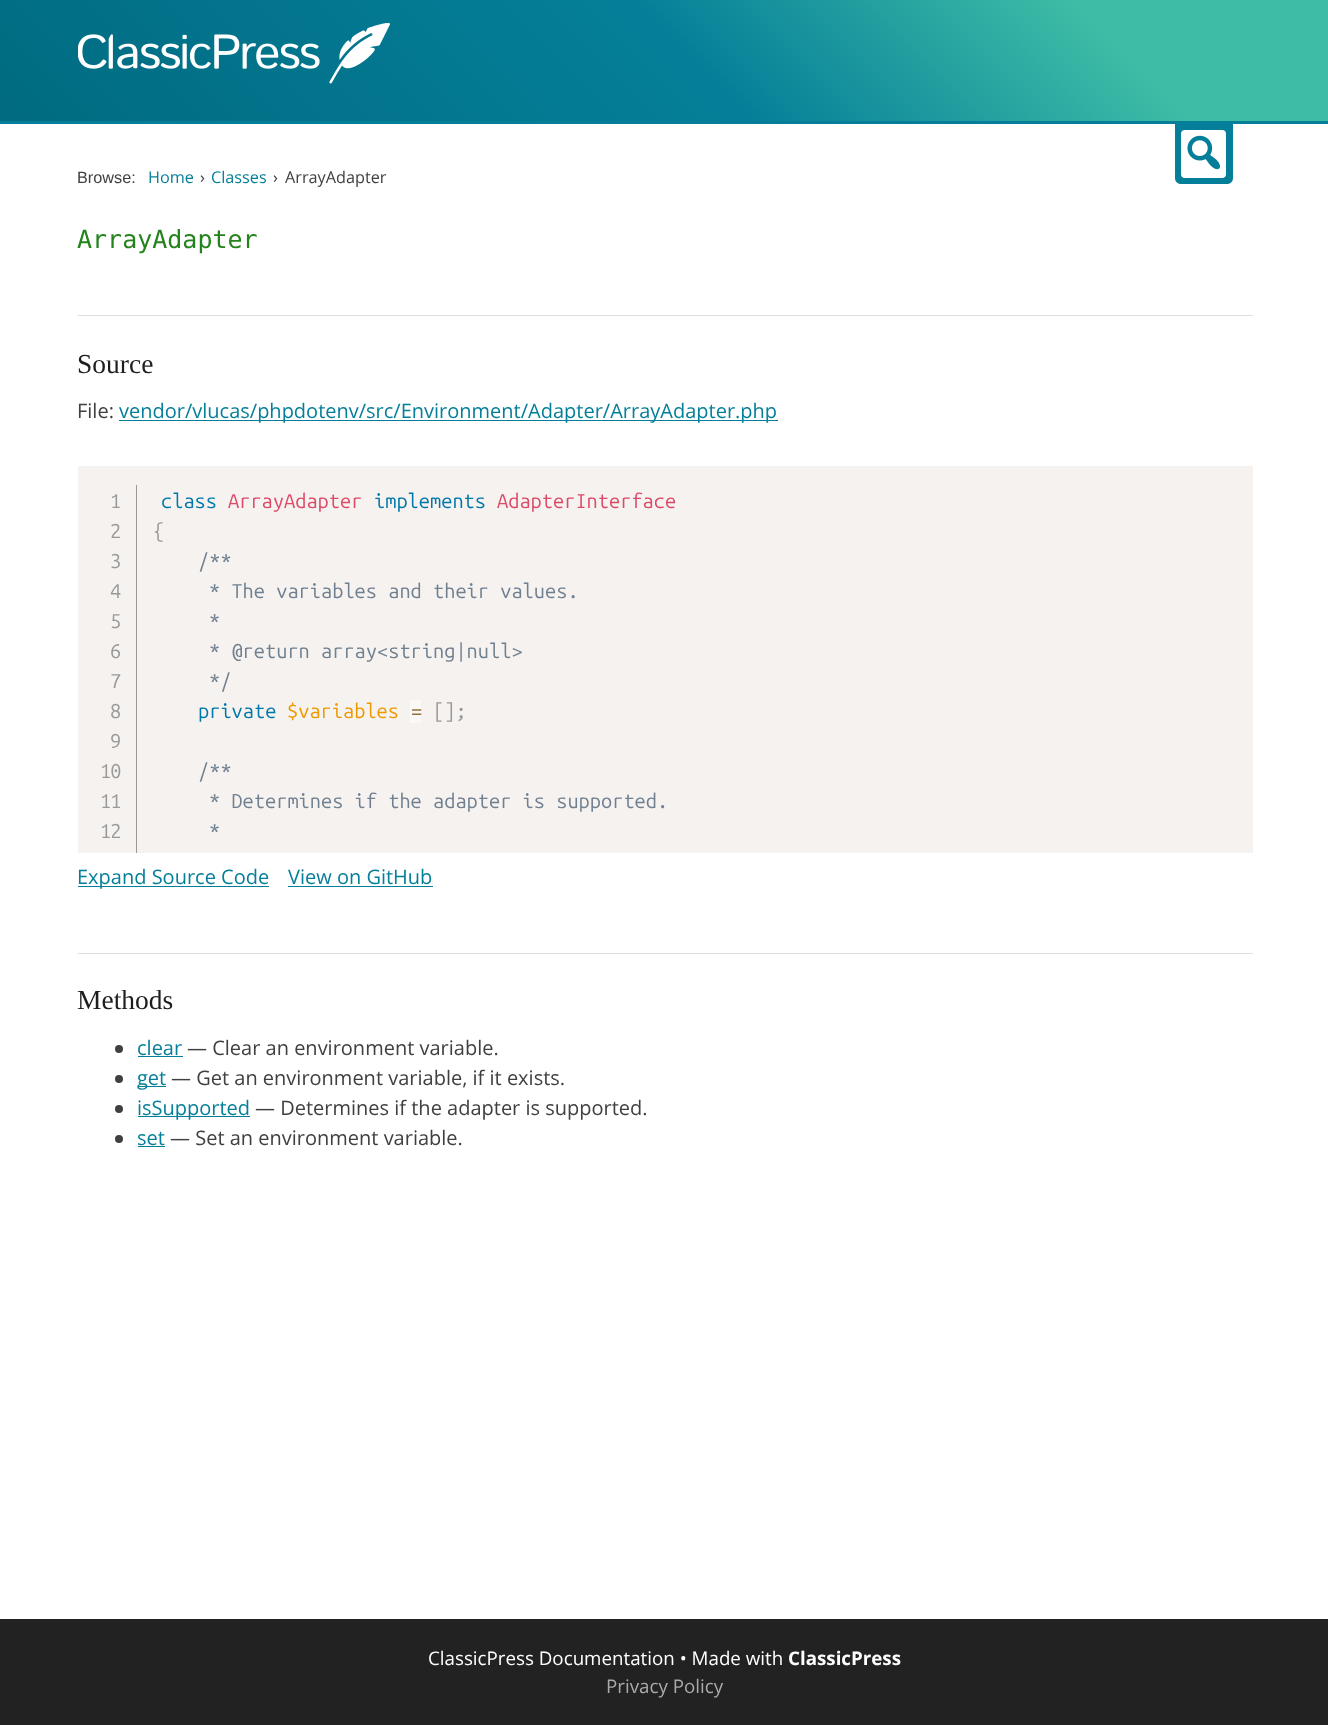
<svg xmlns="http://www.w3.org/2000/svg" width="1328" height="1725">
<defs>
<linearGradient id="g1" gradientUnits="userSpaceOnUse" x1="1027" y1="-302" x2="302" y2="423"><stop offset="0.18" stop-color="#3ebca6"/><stop offset="0.48" stop-color="#057f99"/><stop offset="1" stop-color="#006b81"/></linearGradient>
</defs>
<rect width="100%" height="100%" fill="#fff"/>
<rect width="1328" height="121" fill="url(#g1)"/>
<image x="78" y="23" width="312" height="61" href="media/1.png"/>
<rect y="121" width="1328" height="3" fill="#057f99"/>
<path d="M1175 124h58v54c0 3.5-2.5 6-6 6h-46c-3.5 0-6-2.5-6-6z" fill="#057f99"/>
<rect x="1181" y="130" width="45" height="48" rx="4" fill="#fff"/>
<image x="1187" y="135" width="34" height="35" href="media/2.png"/>
<text x="77" y="183" style="font-family:Liberation Sans;font-size:16.25px;fill:#404040">Browse:</text>
<text x="148" y="183" style="font-family:Open Sans;font-size:16.25px;fill:#057f99">Home</text>
<text x="200" y="183" style="font-family:Open Sans;font-size:16.25px;fill:#404040">›</text>
<text x="211" y="183" style="font-family:Open Sans;font-size:16.25px;fill:#057f99">Classes</text>
<text x="273" y="183" style="font-family:Open Sans;font-size:16.25px;fill:#404040">›</text>
<text x="285" y="183" style="font-family:Open Sans;font-size:16.25px;fill:#404040">ArrayAdapter</text>
<text x="77" y="248" style="font-family:DejaVu Sans Mono;font-size:25px;fill:#24831d">ArrayAdapter</text>
<rect x="78" y="315" width="1175" height="1" fill="#dfdfdf"/>
<text x="77" y="373" style="font-family:Liberation Serif;font-size:27.5px;fill:#1e1e1e">Source</text>
<text x="77" y="418" style="font-family:Open Sans;font-size:20px;fill:#404040">File:</text>
<rect x="119" y="420" width="659" height="1" fill="#057f99"/>
<text x="119" y="418" style="font-family:Open Sans;font-size:20px;fill:#057f99">vendor/vlucas/phpdotenv/src/Environment/Adapter/ArrayAdapter.php</text>
<rect x="78" y="466" width="1175" height="387" fill="#f5f2f0"/>
<rect x="136" y="485" width="1" height="368" fill="#999"/>
<text x="110" y="508" style="font-family:Ubuntu Mono;font-size:20px;letter-spacing:-1px;fill:#999">1</text>
<text x="110" y="538" style="font-family:Ubuntu Mono;font-size:20px;letter-spacing:-1px;fill:#999">2</text>
<text x="110" y="568" style="font-family:Ubuntu Mono;font-size:20px;letter-spacing:-1px;fill:#999">3</text>
<text x="110" y="598" style="font-family:Ubuntu Mono;font-size:20px;letter-spacing:-1px;fill:#999">4</text>
<text x="110" y="628" style="font-family:Ubuntu Mono;font-size:20px;letter-spacing:-1px;fill:#999">5</text>
<text x="110" y="658" style="font-family:Ubuntu Mono;font-size:20px;letter-spacing:-1px;fill:#999">6</text>
<text x="110" y="688" style="font-family:Ubuntu Mono;font-size:20px;letter-spacing:-1px;fill:#999">7</text>
<text x="110" y="718" style="font-family:Ubuntu Mono;font-size:20px;letter-spacing:-1px;fill:#999">8</text>
<text x="110" y="748" style="font-family:Ubuntu Mono;font-size:20px;letter-spacing:-1px;fill:#999">9</text>
<text x="100" y="778" style="font-family:Ubuntu Mono;font-size:20px;letter-spacing:-1px;fill:#999">10</text>
<text x="100" y="808" style="font-family:Ubuntu Mono;font-size:20px;letter-spacing:-1px;fill:#999">11</text>
<text x="100" y="838" style="font-family:Ubuntu Mono;font-size:20px;letter-spacing:-1px;fill:#999">12</text>
<text x="153" y="538" style="font-family:Ubuntu Mono;font-size:20px;fill:#999">{</text>
<text x="161" y="508" style="font-family:Ubuntu Mono;font-size:20px;fill:#07a">class</text>
<text x="228" y="508" style="font-family:Ubuntu Mono;font-size:20px;fill:#dd4a68">ArrayAdapter</text>
<text x="374" y="508" style="font-family:Ubuntu Mono;font-size:20px;fill:#07a">implements</text>
<text x="497" y="508" style="font-family:Ubuntu Mono;font-size:20px;fill:#dd4a68">AdapterInterface</text>
<text x="198" y="568" style="font-family:Ubuntu Mono;font-size:20px;fill:#708090">/**</text>
<text x="209" y="598" style="font-family:Ubuntu Mono;font-size:20px;fill:#708090">* The variables and their values.</text>
<text x="209" y="628" style="font-family:Ubuntu Mono;font-size:20px;fill:#708090">*</text>
<text x="209" y="658" style="font-family:Ubuntu Mono;font-size:20px;fill:#708090">* @return array&lt;string|null&gt;</text>
<text x="209" y="688" style="font-family:Ubuntu Mono;font-size:20px;fill:#708090">*/</text>
<text x="198" y="718" style="font-family:Ubuntu Mono;font-size:20px;fill:#07a">private</text>
<text x="287" y="718" style="font-family:Ubuntu Mono;font-size:20px;fill:#e90">$variables</text>
<rect x="410" y="700" width="11" height="23" fill="#faf9f8"/>
<text x="411" y="718" style="font-family:Ubuntu Mono;font-size:20px;fill:#9a6e3a">=</text>
<text x="433" y="718" style="font-family:Ubuntu Mono;font-size:20px;fill:#999">[];</text>
<text x="198" y="778" style="font-family:Ubuntu Mono;font-size:20px;fill:#708090">/**</text>
<text x="209" y="808" style="font-family:Ubuntu Mono;font-size:20px;fill:#708090">* Determines if the adapter is supported.</text>
<text x="209" y="838" style="font-family:Ubuntu Mono;font-size:20px;fill:#708090">*</text>
<rect x="78" y="886" width="191" height="1" fill="#057f99"/>
<text x="77" y="884" style="font-family:Open Sans;font-size:20px;fill:#057f99">Expand Source Code</text>
<text x="288" y="884" style="font-family:Open Sans;font-size:20px;fill:#057f99">View on GitHub</text>
<rect x="288" y="886" width="145" height="1" fill="#057f99"/>
<rect x="78" y="953" width="1175" height="1" fill="#dfdfdf"/>
<text x="77" y="1009" style="font-family:Liberation Serif;font-size:27.5px;fill:#1e1e1e">Methods</text>
<circle cx="119" cy="1049" r="4" fill="#404040"/>
<text x="137" y="1055" style="font-family:Open Sans;font-size:20px;fill:#057f99">clear</text>
<rect x="138" y="1056" width="45" height="1" fill="#057f99"/>
<text x="187" y="1055" style="font-family:Open Sans;font-size:20px;fill:#404040">— Clear an environment variable.</text>
<circle cx="119" cy="1079" r="4" fill="#404040"/>
<rect x="138" y="1086" width="28" height="1" fill="#057f99"/>
<text x="137" y="1085" style="font-family:Open Sans;font-size:20px;fill:#057f99">get</text>
<text x="171" y="1085" style="font-family:Open Sans;font-size:20px;fill:#404040">— Get an environment variable, if it exists.</text>
<circle cx="119" cy="1109" r="4" fill="#404040"/>
<rect x="138" y="1116" width="112" height="1" fill="#057f99"/>
<text x="137" y="1115" style="font-family:Open Sans;font-size:20px;fill:#057f99">isSupported</text>
<text x="255" y="1115" style="font-family:Open Sans;font-size:20px;fill:#404040">— Determines if the adapter is supported.</text>
<circle cx="119" cy="1139" r="4" fill="#404040"/>
<text x="137" y="1145" style="font-family:Open Sans;font-size:20px;fill:#057f99">set</text>
<rect x="138" y="1146" width="27" height="1" fill="#057f99"/>
<text x="170" y="1145" style="font-family:Open Sans;font-size:20px;fill:#404040">— Set an environment variable.</text>
<rect y="1619" width="1328" height="106" fill="#222"/>
<text x="428" y="1665" style="font-family:Open Sans;font-size:18.75px;fill:#fff">ClassicPress Documentation • Made with</text>
<text x="788" y="1665" style="font-family:Open Sans;font-size:18.75px;font-weight:bold;fill:#fff">ClassicPress</text>
<text x="606" y="1693" style="font-family:Open Sans;font-size:18.75px;fill:#aaa">Privacy Policy</text>
</svg>
